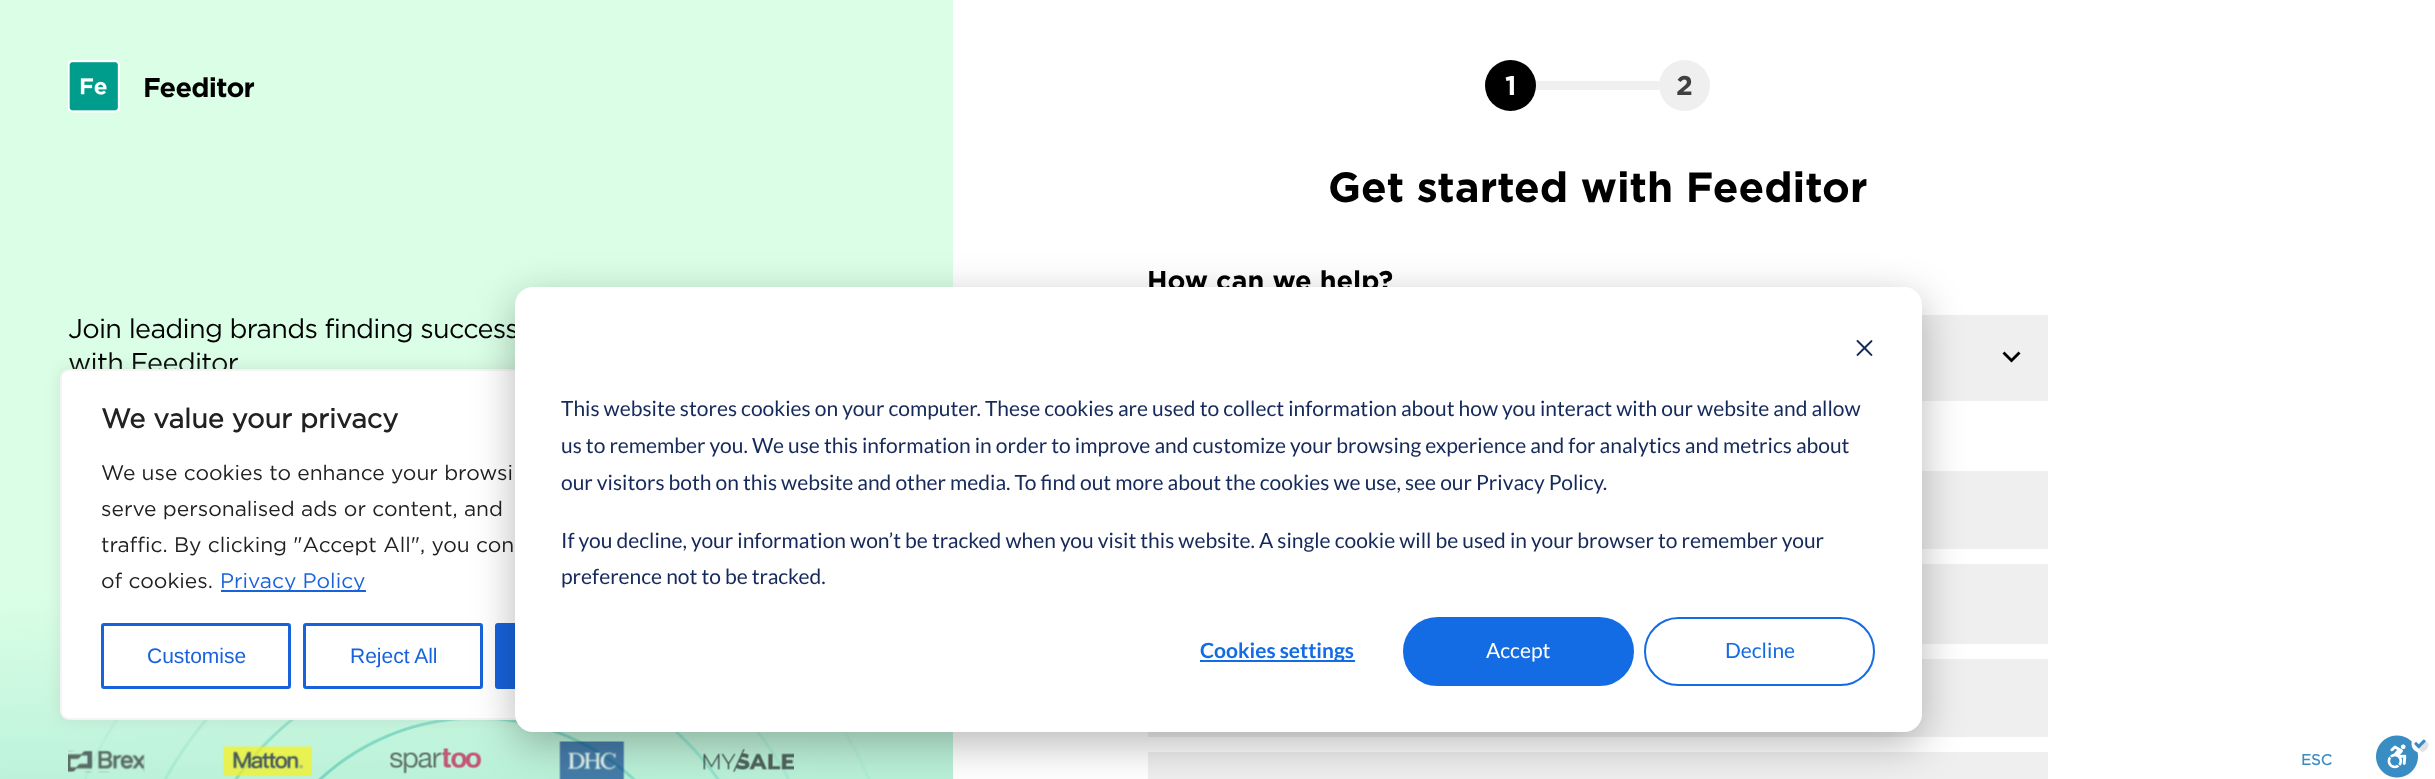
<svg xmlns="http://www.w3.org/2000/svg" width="2435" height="779">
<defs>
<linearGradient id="g1" gradientUnits="userSpaceOnUse" x1="462" y1="-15" x2="529" y2="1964"><stop offset="0.3" stop-color="#daffe6"/><stop offset="1" stop-color="#009d8d"/></linearGradient>
</defs>
<rect width="100%" height="100%" fill="#fff"/>
<rect width="953" height="779" fill="url(#g1)"/>
<image x="68" y="60" width="52" height="53" href="media/1.png"/>
<text x="143" y="97" style="font-family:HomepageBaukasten;font-size:27px;font-weight:bold;letter-spacing:-0.7px;fill:#000">Feeditor</text>
<text x="68" y="338" style="font-family:HomepageBaukasten;font-size:27px;letter-spacing:-0.7px;fill:#000">Join leading brands finding success</text>
<text x="68" y="372" style="font-family:HomepageBaukasten;font-size:27px;letter-spacing:-0.7px;fill:#000">with Feeditor.</text>
<image x="84" y="720" width="786" height="59" href="media/3.png"/>
<image x="68" y="741" width="726" height="38" href="media/2.png"/>
<circle cx="1510.5" cy="85.5" r="25.5" fill="#000"/>
<text x="1505" y="95" style="font-family:HomepageBaukasten;font-size:27px;font-weight:bold;fill:#fff">1</text>
<rect x="1536" y="81" width="123" height="9" fill="#efefef"/>
<circle cx="1684.5" cy="85.5" r="25.5" fill="#efefef"/>
<text x="1676" y="95" style="font-family:HomepageBaukasten;font-size:27px;font-weight:bold;fill:#404040">2</text>
<text x="1328" y="202" style="font-family:HomepageBaukasten;font-size:42px;font-weight:bold;fill:#000">Get started with Feeditor</text>
<text x="1147" y="290" style="font-family:HomepageBaukasten;font-size:27px;font-weight:bold;fill:#000">How can we help?</text>
<rect x="1922" y="315" width="126" height="86" fill="#efefef"/>
<path d="M2020.5 353.5l-2-2l-7 7l-7-7l-2 2l9 9z" fill="#000"/>
<rect x="1922" y="471" width="126" height="78" fill="#efefef"/>
<rect x="1922" y="564" width="126" height="80" fill="#efefef"/>
<rect x="1148" y="659" width="900" height="78" fill="#efefef"/>
<rect x="1148" y="752" width="900" height="27" fill="#efefef"/>
<rect x="60" y="368" width="660" height="351" rx="9" fill="#acabab4d" filter="blur(7.5px)"/>
<rect x="61" y="370" width="658" height="349" rx="8" fill="#fff" stroke="#f4f4f4" stroke-width="2"/>
<text x="101" y="428" style="font-family:'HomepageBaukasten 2';font-size:27px;font-weight:bold;fill:#212121">We value your privacy</text>
<text x="101" y="480" style="font-family:HomepageBaukasten;font-size:21px;fill:#212121">We use cookies to enhance your browsi</text>
<text x="101" y="516" style="font-family:HomepageBaukasten;font-size:21px;fill:#212121">serve personalised ads or content, and</text>
<text x="101" y="552" style="font-family:HomepageBaukasten;font-size:21px;fill:#212121">traffic. By clicking "Accept All", you con</text>
<text x="101" y="588" style="font-family:HomepageBaukasten;font-size:21px;fill:#212121">of cookies.</text>
<rect x="221" y="590" width="145" height="2" fill="#1863dc"/>
<text x="220" y="588" style="font-family:HomepageBaukasten;font-size:21px;fill:#1863dc">Privacy Policy</text>
<rect x="102.5" y="624.5" width="187" height="63" rx="1.5" fill="none" stroke="#1863dc" stroke-width="3"/>
<text x="147" y="663" style="font-family:Liberation Sans;font-size:21px;fill:#1863dc">Customise</text>
<rect x="304.5" y="624.5" width="177" height="63" rx="1.5" fill="none" stroke="#1863dc" stroke-width="3"/>
<text x="350" y="663" style="font-family:Liberation Sans;font-size:21px;fill:#1863dc">Reject All</text>
<rect x="496.5" y="624.5" width="182" height="63" rx="1.5" fill="#1863dc" stroke="#1863dc" stroke-width="3"/>
<rect x="515" y="299" width="1407" height="445" rx="18" fill="#00000047" filter="blur(21px)"/>
<rect x="515" y="287" width="1407" height="445" rx="18" fill="#fff"/>
<image x="1856" y="340" width="17" height="16" href="media/4.png"/>
<text x="561" y="416" style="font-family:Lato;font-size:21px;fill:#15295a">This website stores cookies on your computer. These cookies are used to collect information about how you interact with our website and allow</text>
<text x="561" y="453" style="font-family:Lato;font-size:21px;fill:#15295a">us to remember you. We use this information in order to improve and customize your browsing experience and for analytics and metrics about</text>
<text x="561" y="490" style="font-family:Lato;font-size:21px;fill:#15295a">our visitors both on this website and other media. To find out more about the cookies we use, see our Privacy Policy.</text>
<text x="561" y="548" style="font-family:Lato;font-size:21px;fill:#15295a">If you decline, your information won’t be tracked when you visit this website. A single cookie will be used in your browser to remember your</text>
<text x="561" y="584" style="font-family:Lato;font-size:21px;fill:#15295a">preference not to be tracked.</text>
<rect x="1200" y="660" width="155" height="2" fill="#146ce5"/>
<text x="1200" y="658" style="font-family:Lato;font-size:21px;font-weight:bold;fill:#146ce5">Cookies settings</text>
<rect x="1404" y="618" width="229" height="67" rx="33.5" fill="#146ce5" stroke="#146ce5" stroke-width="2"/>
<text x="1486" y="658" style="font-family:Lato;font-size:21px;fill:#fff">Accept</text>
<rect x="1645" y="618" width="229" height="67" rx="33.5" fill="none" stroke="#146ce5" stroke-width="2"/>
<text x="1725" y="658" style="font-family:Lato;font-size:21px;fill:#146ce5">Decline</text>
<text x="2301" y="765" style="font-family:'HomepageBaukasten 2';font-size:15px;font-weight:bold;fill:#3a8dc2">ESC</text>
<image x="2376" y="735" width="53" height="43" href="media/5.png"/>
</svg>
